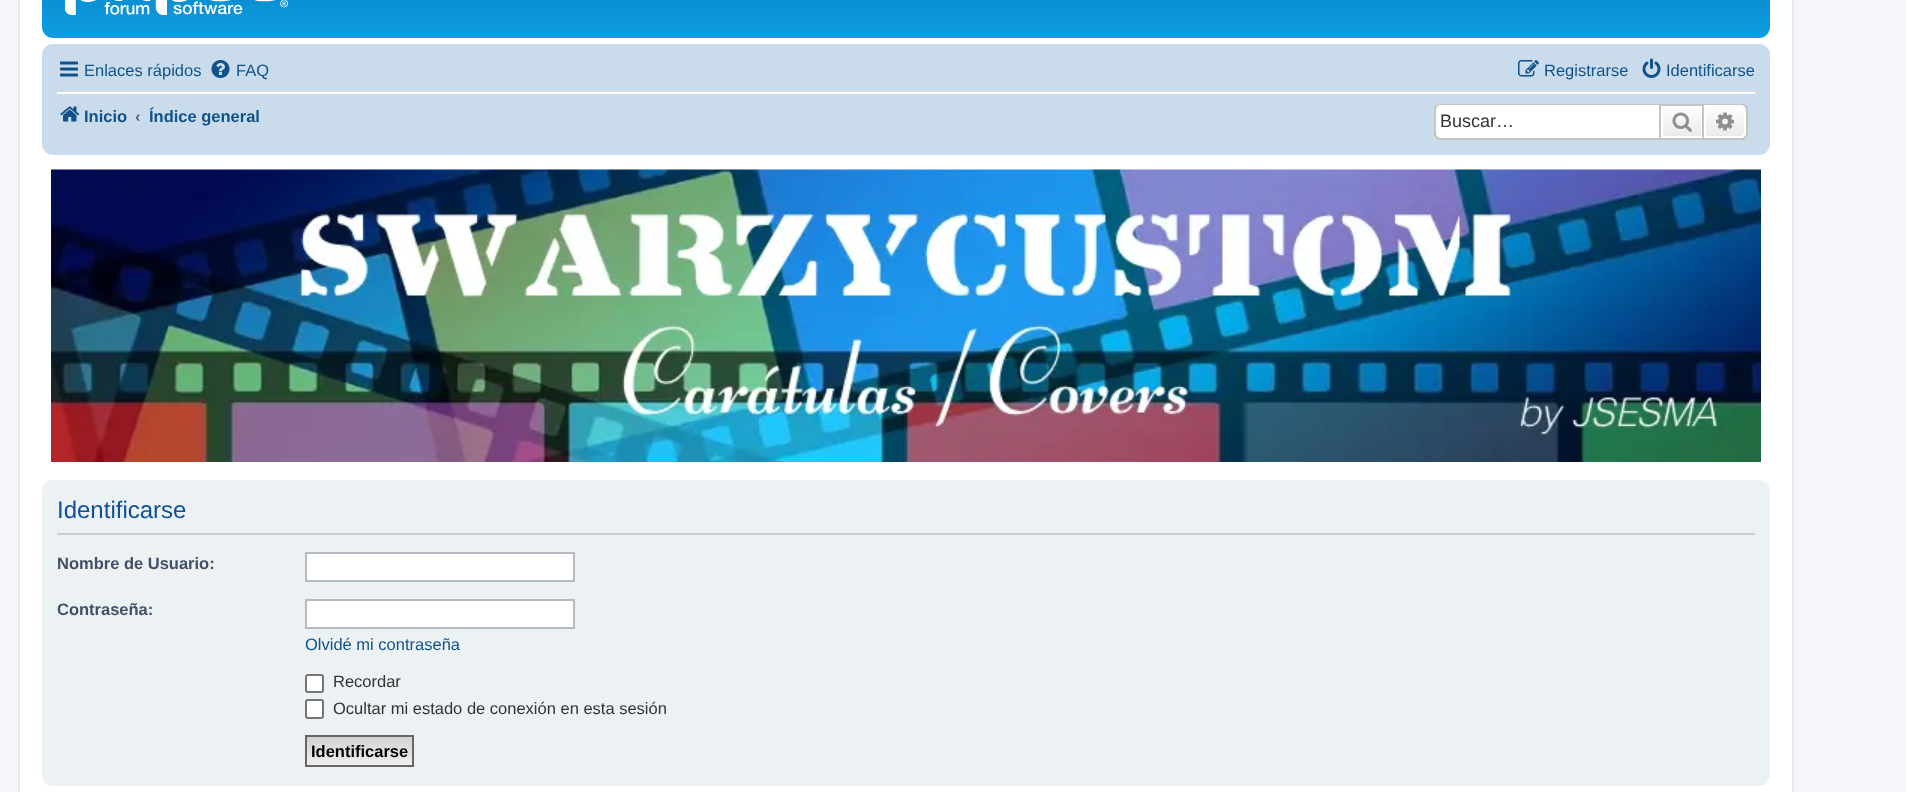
<svg xmlns="http://www.w3.org/2000/svg" width="1906" height="792">
<defs>
<linearGradient id="g1" gradientUnits="userSpaceOnUse" x1="906" y1="-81" x2="906" y2="57"><stop offset="0" stop-color="#6aceff"/><stop offset="0.02" stop-color="#0076b1"/><stop offset="1" stop-color="#12a3eb"/></linearGradient>
<linearGradient id="g2" gradientUnits="userSpaceOnUse" x1="1682" y1="105" x2="1682" y2="138"><stop offset="0" stop-color="#fff"/><stop offset="1" stop-color="#e9e9e9"/></linearGradient>
<linearGradient id="g3" gradientUnits="userSpaceOnUse" x1="1725" y1="105" x2="1725" y2="138"><stop offset="0" stop-color="#fff"/><stop offset="1" stop-color="#e9e9e9"/></linearGradient>
<linearGradient id="g4" gradientUnits="userSpaceOnUse" x1="359" y1="737" x2="359" y2="765"><stop offset="0" stop-color="#d2d2d2"/><stop offset="1" stop-color="#efefef"/></linearGradient>
</defs>
<rect width="100%" height="100%" fill="#f5f7fa"/>
<rect x="19" y="-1" width="1774" height="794" fill="#fff" stroke="#e6e9ed" stroke-width="2"/>
<rect x="42" y="-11" width="1728" height="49" rx="11" fill="url(#g1)"/>
<image x="65" y="0" width="223" height="15" href="media/1.png"/>
<rect x="42" y="44" width="1728" height="111" rx="11" fill="#cadceb"/>
<image x="60" y="61" width="18" height="16" href="media/2.png"/>
<text x="84" y="76" style="font-family:Liberation Sans;font-size:16.5px;fill:#105289">Enlaces rápidos</text>
<image x="211" y="60" width="19" height="18" href="media/3.png"/>
<text x="236" y="76" style="font-family:Liberation Sans;font-size:16.5px;fill:#105289">FAQ</text>
<image x="1518" y="60" width="21" height="17" href="media/4.png"/>
<text x="1544" y="76" style="font-family:Liberation Sans;font-size:16.5px;fill:#105289">Registrarse</text>
<image x="1642" y="58" width="19" height="20" href="media/5.png"/>
<text x="1666" y="76" style="font-family:Liberation Sans;font-size:16.5px;fill:#105289">Identificarse</text>
<rect x="57" y="92" width="1698" height="2" fill="#fff"/>
<image x="60" y="106" width="20" height="16" href="media/6.png"/>
<text x="84" y="122" style="font-family:Liberation Sans;font-size:16.5px;font-weight:bold;fill:#105289">Inicio</text>
<text x="135" y="122" style="font-family:Liberation Sans;font-size:16.5px;font-weight:bold;fill:#536482">‹</text>
<text x="149" y="122" style="font-family:Liberation Sans;font-size:16.5px;font-weight:bold;fill:#105289">Índice general</text>
<path d="M1441 105h218v33h-218c-3 0-5-2-5-5v-23c0-3 2-5 5-5z" fill="#fff"/>
<path d="M1440 104h219v36h-219c-3 0-6-3-6-6v-24c0-4 3-6 6-6zm0 1h219v33h-219c-2 0-4-2-4-4v-24c0-3 2-5 4-5z" fill="#c7c3bf" fill-rule="evenodd"/>
<text x="1440" y="127" style="font-family:Liberation Sans;font-size:18px;fill:#333">Buscar…</text>
<rect x="1663" y="107" width="38" height="29" fill="url(#g2)"/>
<rect x="1662" y="106" width="40" height="31" fill="none" stroke="#fff" stroke-width="2"/>
<rect x="1660" y="105" width="43" height="34" fill="none" stroke="#c7c3bf" stroke-width="2"/>
<image x="1672" y="112" width="20" height="20" href="media/7.png"/>
<path d="M1705 106h36c2 0 4 2 4 4v23c0 2-2 4-4 4h-36z" fill="url(#g3)" stroke="#fff" stroke-width="2"/>
<path d="M1704 104h38c3 0 6 2 6 6v24c0 3-3 6-6 6h-38zm0 1h38c2 0 4 2 4 5v24c0 2-2 4-4 4h-38z" fill="#c7c3bf" fill-rule="evenodd"/>
<image x="1716" y="112" width="18" height="19" href="media/8.png"/>
<image x="51" y="169" width="1710" height="293" href="media/9.png"/>
<rect x="42" y="480" width="1728" height="306" rx="11" fill="#ecf1f3"/>
<rect x="57" y="533" width="1698" height="2" fill="#ccc"/>
<text x="57" y="518" style="font-family:Liberation Sans;font-size:24px;fill:#115098">Identificarse</text>
<text x="57" y="569" style="font-family:Liberation Sans;font-size:16.5px;font-weight:bold;fill:#425067">Nombre de Usuario:</text>
<rect x="306" y="553" width="268" height="28" fill="#fff" stroke="#b4bac0" stroke-width="2"/>
<text x="57" y="615" style="font-family:Liberation Sans;font-size:16.5px;font-weight:bold;fill:#425067">Contraseña:</text>
<rect x="306" y="600" width="268" height="28" fill="#fff" stroke="#b4bac0" stroke-width="2"/>
<text x="305" y="650" style="font-family:Liberation Sans;font-size:16.5px;fill:#105289">Olvidé mi contraseña</text>
<rect x="306" y="675" width="17" height="17" rx="2" fill="#fff" stroke="#767676" stroke-width="2"/>
<text x="333" y="687" style="font-family:Liberation Sans;font-size:16.5px;fill:#333">Recordar</text>
<rect x="306" y="700" width="17" height="18" rx="2" fill="#fff" stroke="#767676" stroke-width="2"/>
<text x="333" y="714" style="font-family:Liberation Sans;font-size:16.5px;fill:#333">Ocultar mi estado de conexión en esta sesión</text>
<rect x="307" y="737" width="105" height="28" fill="url(#g4)"/>
<rect x="306" y="736" width="107" height="30" fill="none" stroke="#666" stroke-width="2"/>
<text x="311" y="757" style="font-family:Liberation Sans;font-size:16.5px;font-weight:bold;fill:#000">Identificarse</text>
</svg>
